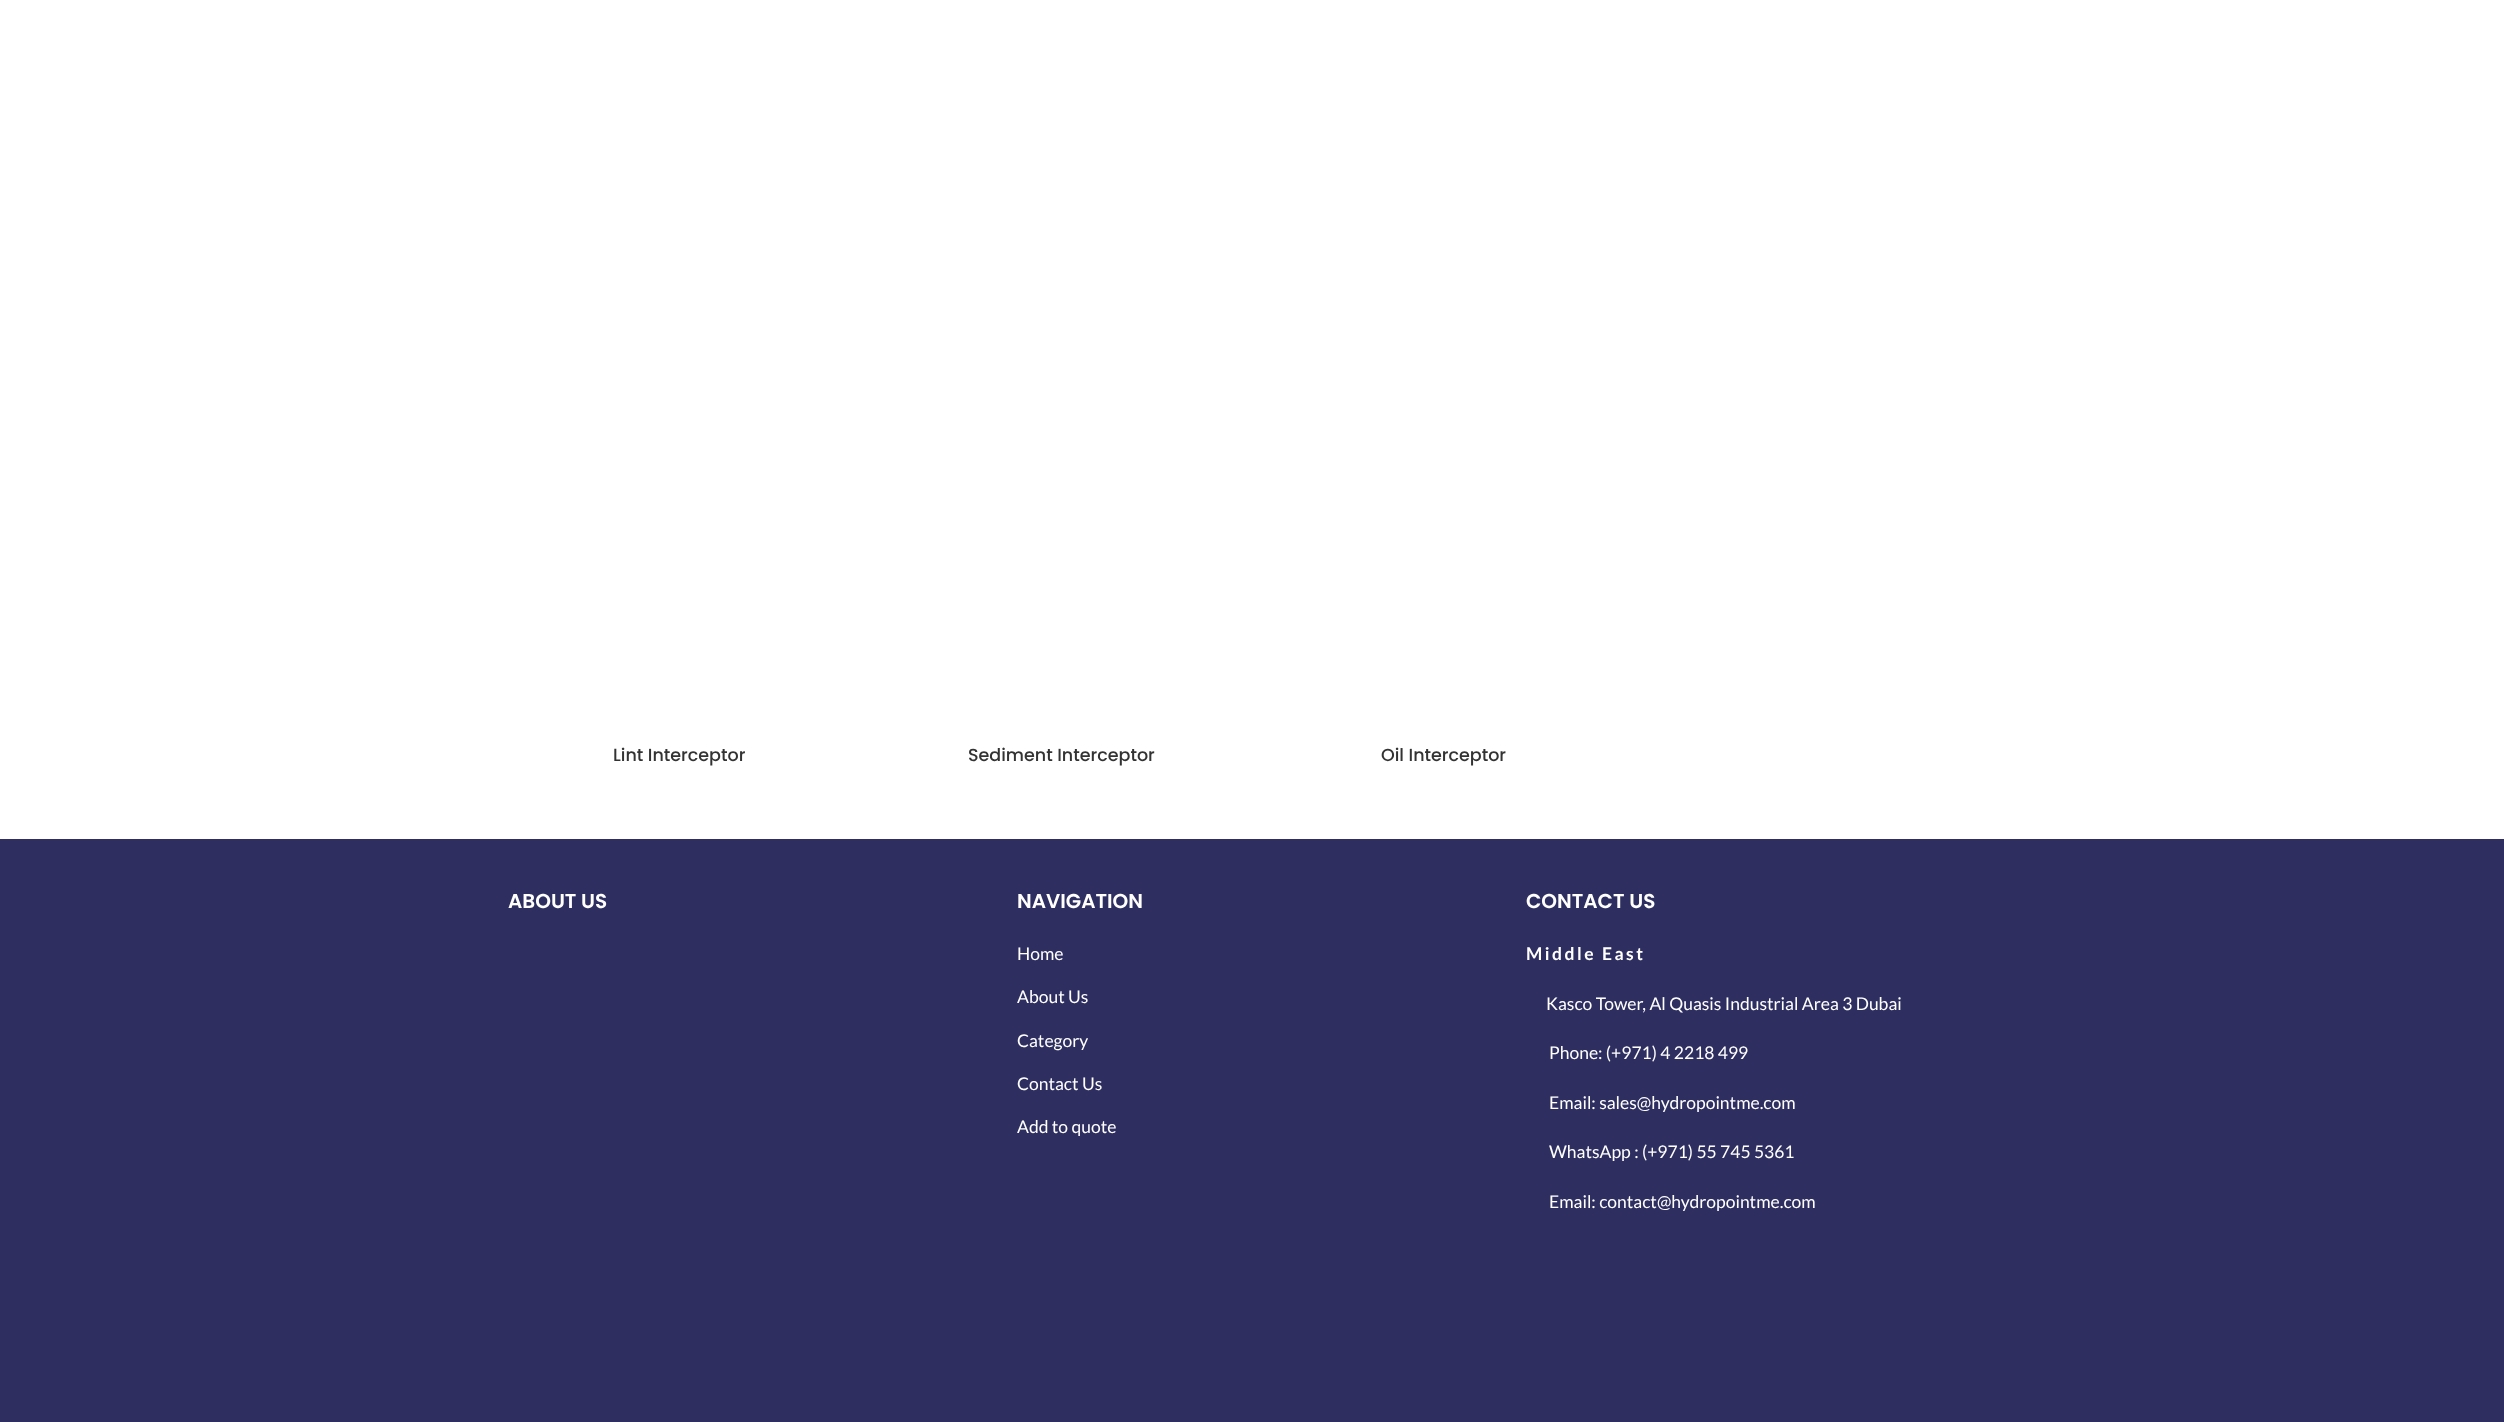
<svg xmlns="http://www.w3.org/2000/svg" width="2504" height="1422">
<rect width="100%" height="100%" fill="#fff"/>
<text x="613" y="761" style="font-family:Poppins;font-size:17.5px;font-weight:500;fill:#333">Lint Interceptor</text>
<text x="968" y="761" style="font-family:Poppins;font-size:17.5px;font-weight:500;fill:#333">Sediment Interceptor</text>
<text x="1381" y="761" style="font-family:Poppins;font-size:17.5px;font-weight:500;fill:#333">Oil Interceptor</text>
<rect y="839" width="2504" height="583" fill="#2e2f60"/>
<text x="508" y="908" style="font-family:Poppins;font-size:20px;font-weight:600;fill:#fff">ABOUT US</text>
<text x="1017" y="908" style="font-family:Poppins;font-size:20px;font-weight:600;fill:#fff">NAVIGATION</text>
<text x="1017" y="960" style="font-family:Lato;font-size:17.5px;fill:#fff">Home</text>
<text x="1017" y="1003" style="font-family:Lato;font-size:17.5px;fill:#fff">About Us</text>
<text x="1017" y="1047" style="font-family:Lato;font-size:17.5px;fill:#fff">Category</text>
<text x="1017" y="1090" style="font-family:Lato;font-size:17.5px;fill:#fff">Contact Us</text>
<text x="1017" y="1133" style="font-family:Lato;font-size:17.5px;fill:#fff">Add to quote</text>
<text x="1526" y="908" style="font-family:Poppins;font-size:20px;font-weight:600;fill:#fff">CONTACT US</text>
<text x="1526" y="960" style="font-family:Lato;font-size:17.5px;font-weight:bold;letter-spacing:2.5px;fill:#fff">Middle East</text>
<text x="1546" y="1010" style="font-family:Lato;font-size:17.5px;fill:#fff">Kasco Tower, Al Quasis Industrial Area 3 Dubai</text>
<text x="1549" y="1059" style="font-family:Lato;font-size:17.5px;fill:#fff">Phone: (+971) 4 2218 499</text>
<text x="1549" y="1109" style="font-family:Lato;font-size:17.5px;fill:#fff">Email: sales@hydropointme.com</text>
<text x="1549" y="1158" style="font-family:Lato;font-size:17.5px;fill:#fff">WhatsApp : (+971) 55 745 5361</text>
<text x="1549" y="1208" style="font-family:Lato;font-size:17.5px;fill:#fff">Email: contact@hydropointme.com</text>
</svg>
